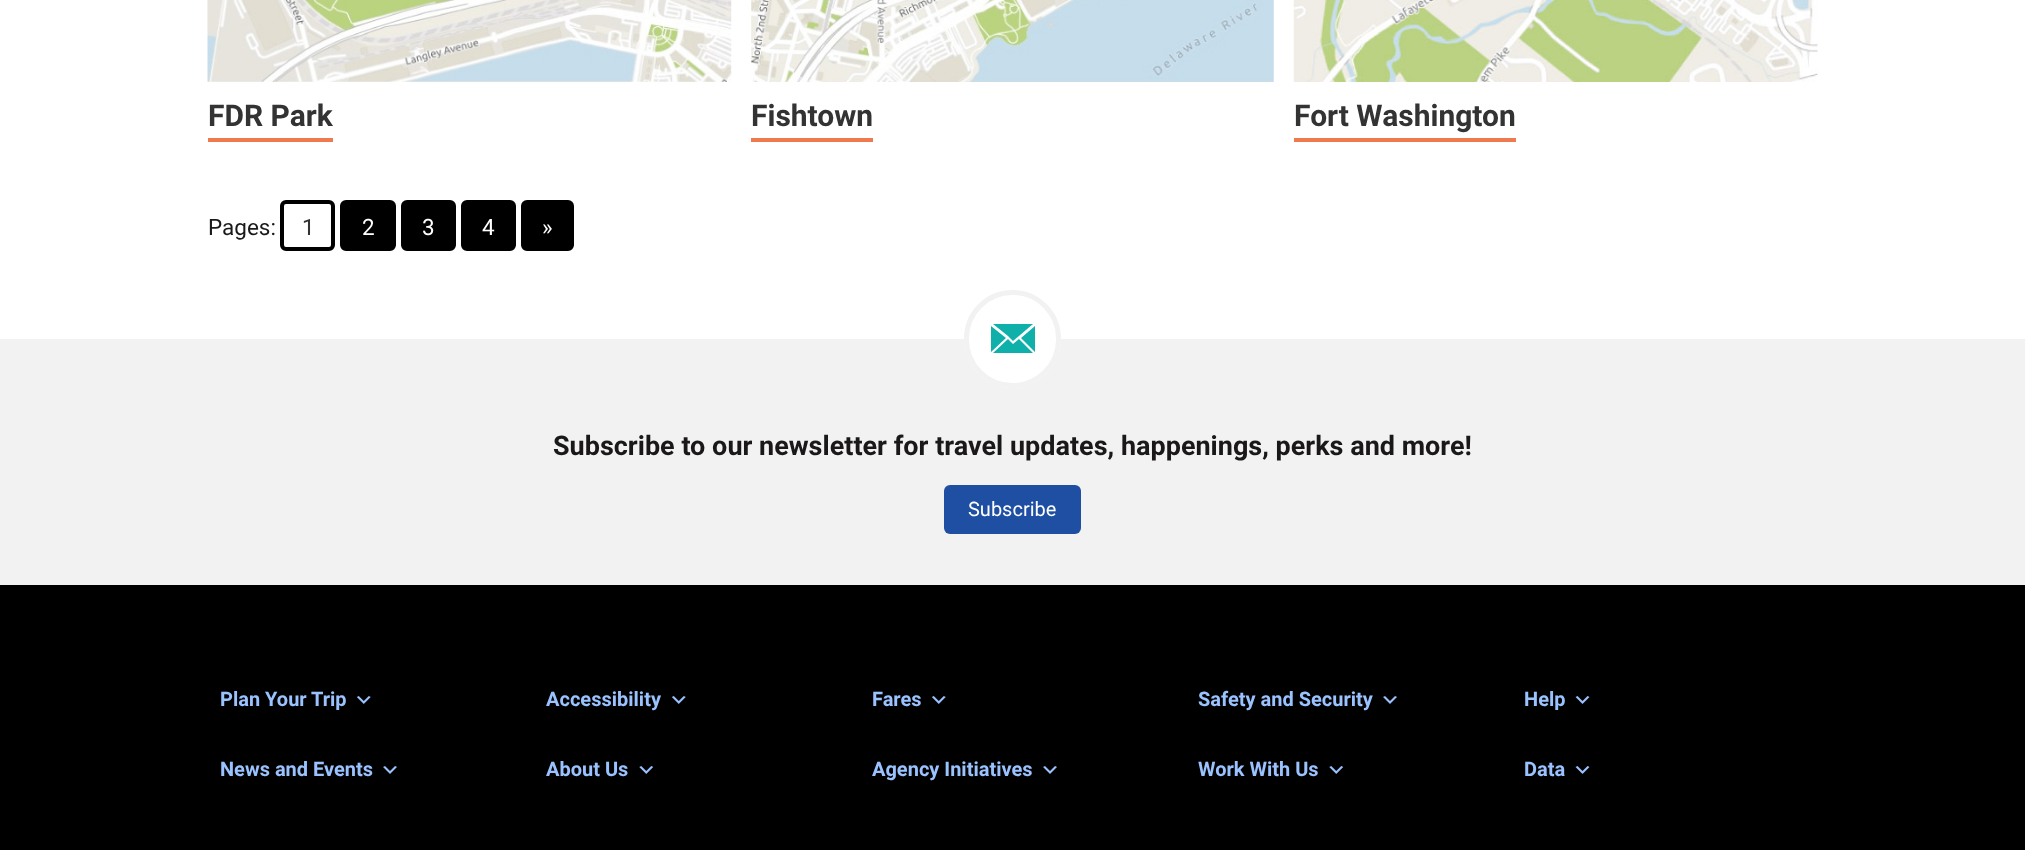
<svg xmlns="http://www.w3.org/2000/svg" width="2025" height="850">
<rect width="100%" height="100%" fill="#fff"/>
<image x="207" y="0" width="525" height="82" href="media/1.png"/>
<rect x="208" y="138" width="125" height="4" fill="#f07a50"/>
<text x="208" y="126" style="font-family:Roboto;font-size:30px;font-weight:bold;fill:#333">FDR Park</text>
<image x="751" y="0" width="523" height="82" href="media/2.png"/>
<rect x="751" y="138" width="122" height="4" fill="#f07a50"/>
<text x="751" y="126" style="font-family:Roboto;font-size:30px;font-weight:bold;fill:#333">Fishtown</text>
<image x="1293" y="0" width="525" height="82" href="media/3.png"/>
<rect x="1294" y="138" width="222" height="4" fill="#f07a50"/>
<text x="1294" y="126" style="font-family:Roboto;font-size:30px;font-weight:bold;fill:#333">Fort Washington</text>
<text x="208" y="235" style="font-family:Roboto;font-size:22.5px;fill:#1a1818">Pages:</text>
<rect x="282" y="202" width="51" height="47" rx="4" fill="none" stroke="#000" stroke-width="4"/>
<text x="302" y="235" style="font-family:Roboto;font-size:22.5px;fill:#333">1</text>
<rect x="342" y="202" width="52" height="47" rx="4" fill="#000" stroke="#000" stroke-width="4"/>
<text x="362" y="235" style="font-family:Roboto;font-size:22.5px;fill:#fff">2</text>
<rect x="403" y="202" width="51" height="47" rx="4" fill="#000" stroke="#000" stroke-width="4"/>
<text x="422" y="235" style="font-family:Roboto;font-size:22.5px;fill:#fff">3</text>
<rect x="463" y="202" width="51" height="47" rx="4" fill="#000" stroke="#000" stroke-width="4"/>
<text x="482" y="235" style="font-family:Roboto;font-size:22.5px;fill:#fff">4</text>
<rect x="523" y="202" width="49" height="47" rx="4" fill="#000" stroke="#000" stroke-width="4"/>
<text x="542" y="235" style="font-family:Roboto;font-size:22.5px;fill:#fff">»</text>
<rect y="339" width="2025" height="246" fill="#f2f2f2"/>
<rect x="964" y="290" width="97" height="98" rx="48.5" fill="#fff"/>
<path d="M991 351v-25l15 12l-15 14zm2-27h40l-20 17l-5-5zm0 29l15-14l5 5l6-5l14 14zm28-15l14-12v26z" fill="#10b0aa"/>
<rect x="966.5" y="292.5" width="92" height="93" rx="46" fill="none" stroke="#f2f2f2" stroke-width="5"/>
<text x="553" y="455" style="font-family:Roboto;font-size:27px;font-weight:bold;fill:#1a1818">Subscribe to our newsletter for travel updates, happenings, perks and more!</text>
<rect x="944" y="485" width="137" height="49" rx="6" fill="#1f4fa3"/>
<text x="968" y="516" style="font-family:Roboto;font-size:20px;fill:#fff">Subscribe</text>
<rect y="585" width="2025" height="265" fill="#000"/>
<text x="220" y="706" style="font-family:Roboto;font-size:20px;font-weight:bold;fill:#99c2ff">Plan Your Trip</text>
<image x="356" y="696" width="15" height="8" href="media/4.png"/>
<text x="546" y="706" style="font-family:Roboto;font-size:20px;font-weight:bold;fill:#99c2ff">Accessibility</text>
<image x="671" y="696" width="15" height="8" href="media/4.png"/>
<text x="872" y="706" style="font-family:Roboto;font-size:20px;font-weight:bold;fill:#99c2ff">Fares</text>
<image x="931" y="696" width="15" height="8" href="media/4.png"/>
<text x="1198" y="706" style="font-family:Roboto;font-size:20px;font-weight:bold;fill:#99c2ff">Safety and Security</text>
<image x="1383" y="696" width="14" height="8" href="media/5.png"/>
<text x="1524" y="706" style="font-family:Roboto;font-size:20px;font-weight:bold;fill:#99c2ff">Help</text>
<image x="1575" y="696" width="15" height="8" href="media/6.png"/>
<text x="220" y="776" style="font-family:Roboto;font-size:20px;font-weight:bold;fill:#99c2ff">News and Events</text>
<image x="383" y="766" width="14" height="8" href="media/5.png"/>
<text x="546" y="776" style="font-family:Roboto;font-size:20px;font-weight:bold;fill:#99c2ff">About Us</text>
<image x="639" y="766" width="15" height="8" href="media/7.png"/>
<text x="872" y="776" style="font-family:Roboto;font-size:20px;font-weight:bold;fill:#99c2ff">Agency Initiatives</text>
<image x="1043" y="766" width="14" height="8" href="media/5.png"/>
<text x="1198" y="776" style="font-family:Roboto;font-size:20px;font-weight:bold;fill:#99c2ff">Work With Us</text>
<image x="1329" y="766" width="15" height="8" href="media/7.png"/>
<text x="1524" y="776" style="font-family:Roboto;font-size:20px;font-weight:bold;fill:#99c2ff">Data</text>
<image x="1575" y="766" width="15" height="8" href="media/6.png"/>
</svg>
